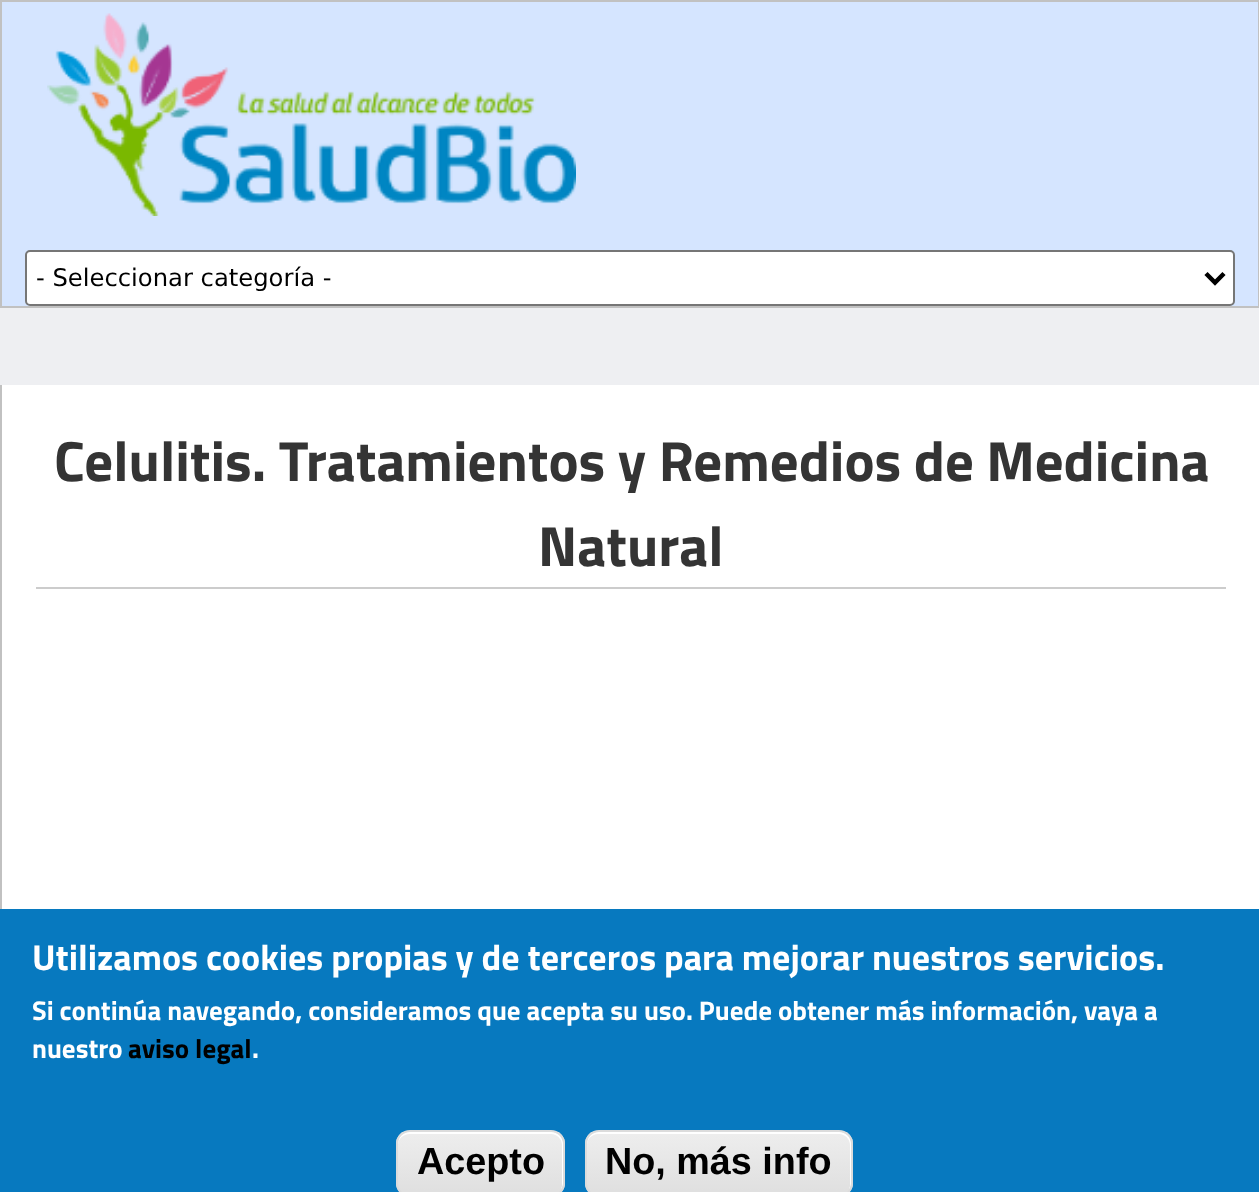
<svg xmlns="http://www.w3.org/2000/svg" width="1259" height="1192">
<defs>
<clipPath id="clip1"><rect x="396" y="1130" width="169" height="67" rx="14"/></clipPath>
<linearGradient id="g1" gradientUnits="userSpaceOnUse" x1="398" y1="1132" x2="398" y2="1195"><stop offset="0.05" stop-color="#ededed"/><stop offset="1" stop-color="#dfdfdf"/></linearGradient>
<clipPath id="clip2"><rect x="585" y="1130" width="268" height="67" rx="14"/></clipPath>
<linearGradient id="g2" gradientUnits="userSpaceOnUse" x1="587" y1="1132" x2="587" y2="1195"><stop offset="0.05" stop-color="#ededed"/><stop offset="1" stop-color="#dfdfdf"/></linearGradient>
</defs>
<rect width="100%" height="100%" fill="#eeeff2"/>
<rect x="1" y="1" width="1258" height="306" fill="#d5e5ff" stroke="#c1c1c1" stroke-width="2"/>
<image x="47" y="13" width="529" height="203" href="media/1.png"/>
<rect x="26" y="251" width="1208" height="54" rx="4" fill="#fff" stroke="#767676" stroke-width="2"/>
<path d="M1206 273.5l9 9l9-9" fill="none" stroke="#000" stroke-width="4.5"/>
<text x="36" y="286" style="font-family:DejaVu Sans;font-size:24.25px;fill:#000">- Seleccionar categoría -</text>
<rect x="2" y="385" width="1257" height="524" fill="#fff"/>
<rect y="385" width="2" height="524" fill="#c1c1c1"/>
<rect x="36" y="587" width="1190" height="2" fill="#ccc"/>
<text x="54" y="481" style="font-family:Titillium Web;font-size:56.7px;font-weight:bold;fill:#343434">Celulitis. Tratamientos y Remedios de Medicina</text>
<text x="538" y="566" style="font-family:Titillium Web;font-size:56.7px;font-weight:bold;fill:#343434">Natural</text>
<rect y="909" width="1259" height="283" fill="#0779bf"/>
<text x="32" y="970" style="font-family:Titillium Web;font-size:36px;font-weight:bold;fill:#fff">Utilizamos cookies propias y de terceros para mejorar nuestros servicios.</text>
<text x="32" y="1020" style="font-family:Titillium Web;font-size:27px;font-weight:bold;fill:#fff">Si continúa navegando, consideramos que acepta su uso. Puede obtener más información, vaya a</text>
<text x="32" y="1058" style="font-family:Titillium Web;font-size:27px;font-weight:bold;fill:#fff">nuestro</text>
<text x="128" y="1058" style="font-family:Titillium Web;font-size:27px;font-weight:bold;fill:#000">aviso legal</text>
<text x="252" y="1058" style="font-family:Titillium Web;font-size:27px;font-weight:bold;fill:#fff">.</text>
<g clip-path="url(#clip1)">
<rect x="396" y="1132" width="169" height="60" fill="url(#g1)"/>
</g>
<path d="M410 1134h141c6 0 11 5 11 11v41l-1 4c1-2 2-4 2-6v-41c0-6-5-11-11-11h-143c-6 0-11 5-11 11v2c0-6 5-11 12-11z" fill="#fff"/>
<rect x="397" y="1131" width="167" height="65" rx="13" fill="none" stroke="#dcdcdc" stroke-width="2"/>
<text x="417" y="1174" style="font-family:Liberation Sans;font-size:37.75px;font-weight:bold;fill:#000">Acepto</text>
<g clip-path="url(#clip2)">
<rect x="585" y="1132" width="268" height="60" fill="url(#g2)"/>
</g>
<path d="M598 1134h241c6 0 11 5 11 11v41l-1 4c1-2 2-4 2-6v-41c0-6-5-11-11-11h-242c-6 0-11 5-11 11v2c0-6 5-11 11-11z" fill="#fff"/>
<rect x="586" y="1131" width="266" height="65" rx="13" fill="none" stroke="#dcdcdc" stroke-width="2"/>
<text x="605" y="1174" style="font-family:Liberation Sans;font-size:37.75px;font-weight:bold;fill:#000">No, más info</text>
</svg>
